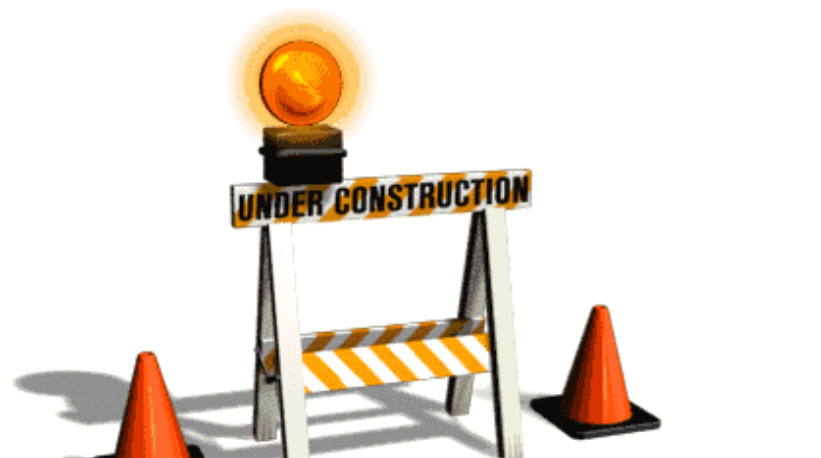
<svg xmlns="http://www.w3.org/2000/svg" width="821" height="458">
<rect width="100%" height="100%" fill="#fff"/>
<image x="11" y="8" width="651" height="450" href="media/1.png"/>
</svg>
